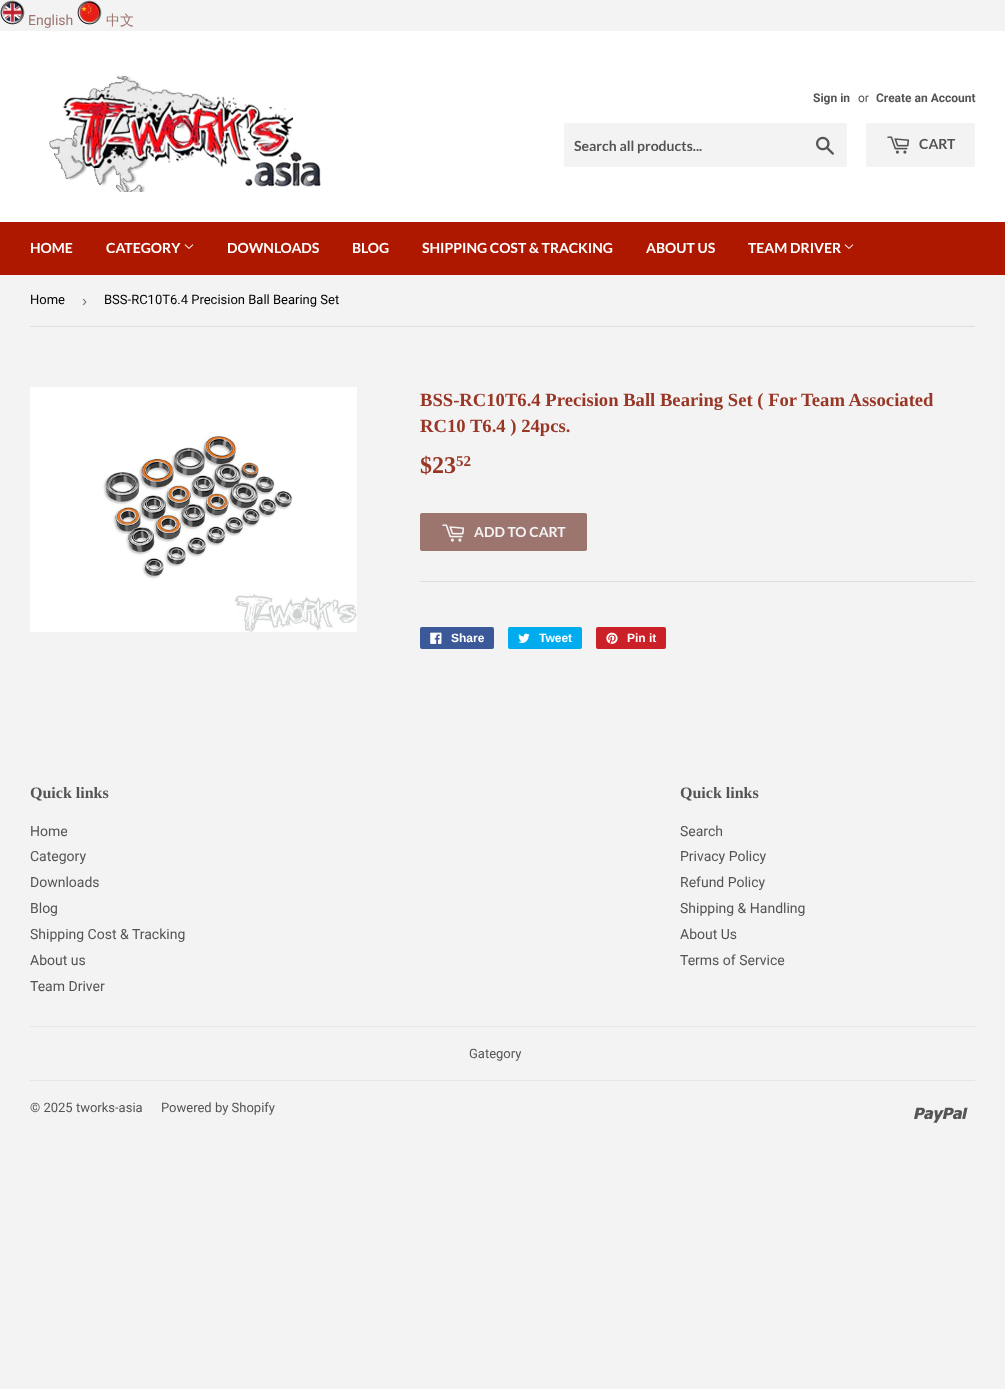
<svg xmlns="http://www.w3.org/2000/svg" width="1005" height="1389">
<rect width="100%" height="100%" fill="#f3f3f3"/>
<image x="0" y="0" width="25" height="25" href="media/1.png"/>
<text x="28" y="25" style="font-family:Roboto;font-size:14px;fill:#9c756f">English</text>
<image x="77" y="0" width="25" height="25" href="media/2.png"/>
<text x="106" y="25" style="font-family:WenQuanYi Zen Hei;font-size:14px;font-weight:500;fill:#9c756f">中文</text>
<rect y="31" width="1005" height="191" fill="#fff"/>
<image x="49" y="76" width="272" height="116" href="media/3.png"/>
<text x="813" y="102" style="font-family:Roboto;font-size:12px;font-weight:bold;fill:#545454">Sign in</text>
<text x="858" y="102" style="font-family:Roboto;font-size:12px;fill:#545454">or</text>
<text x="876" y="102" style="font-family:Roboto;font-size:12px;font-weight:bold;fill:#545454">Create an Account</text>
<rect x="564" y="123" width="283" height="44" rx="2" fill="#f3f3f3"/>
<text x="574" y="151" style="font-family:Lato;font-size:14px;font-weight:bold;fill:#545454">Search all products...</text>
<image x="816" y="136" width="18" height="19" href="media/4.png"/>
<rect x="866" y="123" width="109" height="44" rx="2" fill="#f3f3f3"/>
<image x="887" y="136" width="23" height="18" href="media/5.png"/>
<text x="919" y="149" style="font-family:Lato;font-size:14px;font-weight:bold;fill:#545454">CART</text>
<rect y="222" width="1005" height="53" fill="#ae1800"/>
<text x="30" y="253" style="font-family:Lato;font-size:14px;font-weight:bold;fill:#fff">HOME</text>
<text x="106" y="253" style="font-family:Lato;font-size:14px;font-weight:bold;fill:#fff">CATEGORY</text>
<image x="184" y="244" width="10" height="5" href="media/6.png"/>
<text x="227" y="253" style="font-family:Lato;font-size:14px;font-weight:bold;fill:#fff">DOWNLOADS</text>
<text x="352" y="253" style="font-family:Lato;font-size:14px;font-weight:bold;fill:#fff">BLOG</text>
<text x="422" y="253" style="font-family:Lato;font-size:14px;font-weight:bold;fill:#fff">SHIPPING COST &amp; TRACKING</text>
<text x="646" y="253" style="font-family:Lato;font-size:14px;font-weight:bold;fill:#fff">ABOUT US</text>
<text x="748" y="253" style="font-family:Lato;font-size:14px;font-weight:bold;fill:#fff">TEAM DRIVER</text>
<image x="844" y="244" width="10" height="5" href="media/6.png"/>
<rect x="30" y="326" width="945" height="1" fill="#dedede"/>
<text x="30" y="304" style="font-family:Roboto;font-size:13px;fill:#000">Home</text>
<text x="82" y="306" style="font-family:Liberation Sans;font-size:15px;fill:#767676">›</text>
<text x="104" y="304" style="font-family:Roboto;font-size:13px;fill:#000">BSS-RC10T6.4 Precision Ball Bearing Set</text>
<image x="30" y="387" width="327" height="245" href="media/7.png"/>
<text x="420" y="406" style="font-family:Liberation Serif;font-size:18.65px;font-weight:bold;fill:#993727">BSS-RC10T6.4 Precision Ball Bearing Set ( For Team Associated</text>
<text x="420" y="432" style="font-family:Liberation Serif;font-size:18.65px;font-weight:bold;fill:#993727">RC10 T6.4 ) 24pcs.</text>
<text x="420" y="473" style="font-family:Liberation Serif;font-size:24px;font-weight:bold;fill:#993727">$23</text>
<text x="456" y="466" style="font-family:Liberation Serif;font-size:15px;font-weight:bold;fill:#993727">52</text>
<rect x="420" y="513" width="167" height="38" rx="2" fill="#9c756f"/>
<image x="442" y="524" width="23" height="18" href="media/8.png"/>
<text x="474" y="537" style="font-family:Lato;font-size:14px;font-weight:bold;fill:#f3f3f3">ADD TO CART</text>
<rect x="420" y="581" width="555" height="1" fill="#dedede"/>
<rect x="420" y="627" width="74" height="22" rx="2" fill="#3b5998"/>
<image x="430" y="632" width="12" height="12" href="media/9.png"/>
<text x="451" y="642" style="font-family:Liberation Sans;font-size:12px;font-weight:bold;fill:#fff">Share</text>
<rect x="508" y="627" width="74" height="22" rx="2" fill="#00aced"/>
<image x="518" y="633" width="12" height="10" href="media/10.png"/>
<text x="539" y="642" style="font-family:Liberation Sans;font-size:12px;font-weight:bold;fill:#fff">Tweet</text>
<rect x="596" y="627" width="70" height="22" rx="2" fill="#cb2027"/>
<image x="606" y="632" width="12" height="12" href="media/11.png"/>
<text x="627" y="642" style="font-family:Liberation Sans;font-size:12px;font-weight:bold;fill:#fff">Pin it</text>
<text x="30" y="798" style="font-family:Liberation Serif;font-size:16px;font-weight:bold;fill:#545454">Quick links</text>
<text x="30" y="836" style="font-family:Roboto;font-size:14px;fill:#545454">Home</text>
<text x="30" y="861" style="font-family:Roboto;font-size:14px;fill:#545454">Category</text>
<text x="30" y="887" style="font-family:Roboto;font-size:14px;fill:#545454">Downloads</text>
<text x="30" y="913" style="font-family:Roboto;font-size:14px;fill:#545454">Blog</text>
<text x="30" y="939" style="font-family:Roboto;font-size:14px;fill:#545454">Shipping Cost &amp; Tracking</text>
<text x="30" y="965" style="font-family:Roboto;font-size:14px;fill:#545454">About us</text>
<text x="30" y="991" style="font-family:Roboto;font-size:14px;fill:#545454">Team Driver</text>
<text x="680" y="798" style="font-family:Liberation Serif;font-size:16px;font-weight:bold;fill:#545454">Quick links</text>
<text x="680" y="836" style="font-family:Roboto;font-size:14px;fill:#545454">Search</text>
<text x="680" y="861" style="font-family:Roboto;font-size:14px;fill:#545454">Privacy Policy</text>
<text x="680" y="887" style="font-family:Roboto;font-size:14px;fill:#545454">Refund Policy</text>
<text x="680" y="913" style="font-family:Roboto;font-size:14px;fill:#545454">Shipping &amp; Handling</text>
<text x="680" y="939" style="font-family:Roboto;font-size:14px;fill:#545454">About Us</text>
<text x="680" y="965" style="font-family:Roboto;font-size:14px;fill:#545454">Terms of Service</text>
<rect x="30" y="1026" width="945" height="1" fill="#e5e5e5"/>
<text x="469" y="1058" style="font-family:Roboto;font-size:13px;fill:#545454">Gategory</text>
<rect x="30" y="1080" width="945" height="1" fill="#e5e5e5"/>
<text x="30" y="1112" style="font-family:Roboto;font-size:13px;fill:#545454">© 2025 tworks-asia</text>
<text x="161" y="1112" style="font-family:Roboto;font-size:13px;fill:#545454">Powered by Shopify</text>
<image x="914" y="1107" width="54" height="16" href="media/12.png"/>
</svg>
